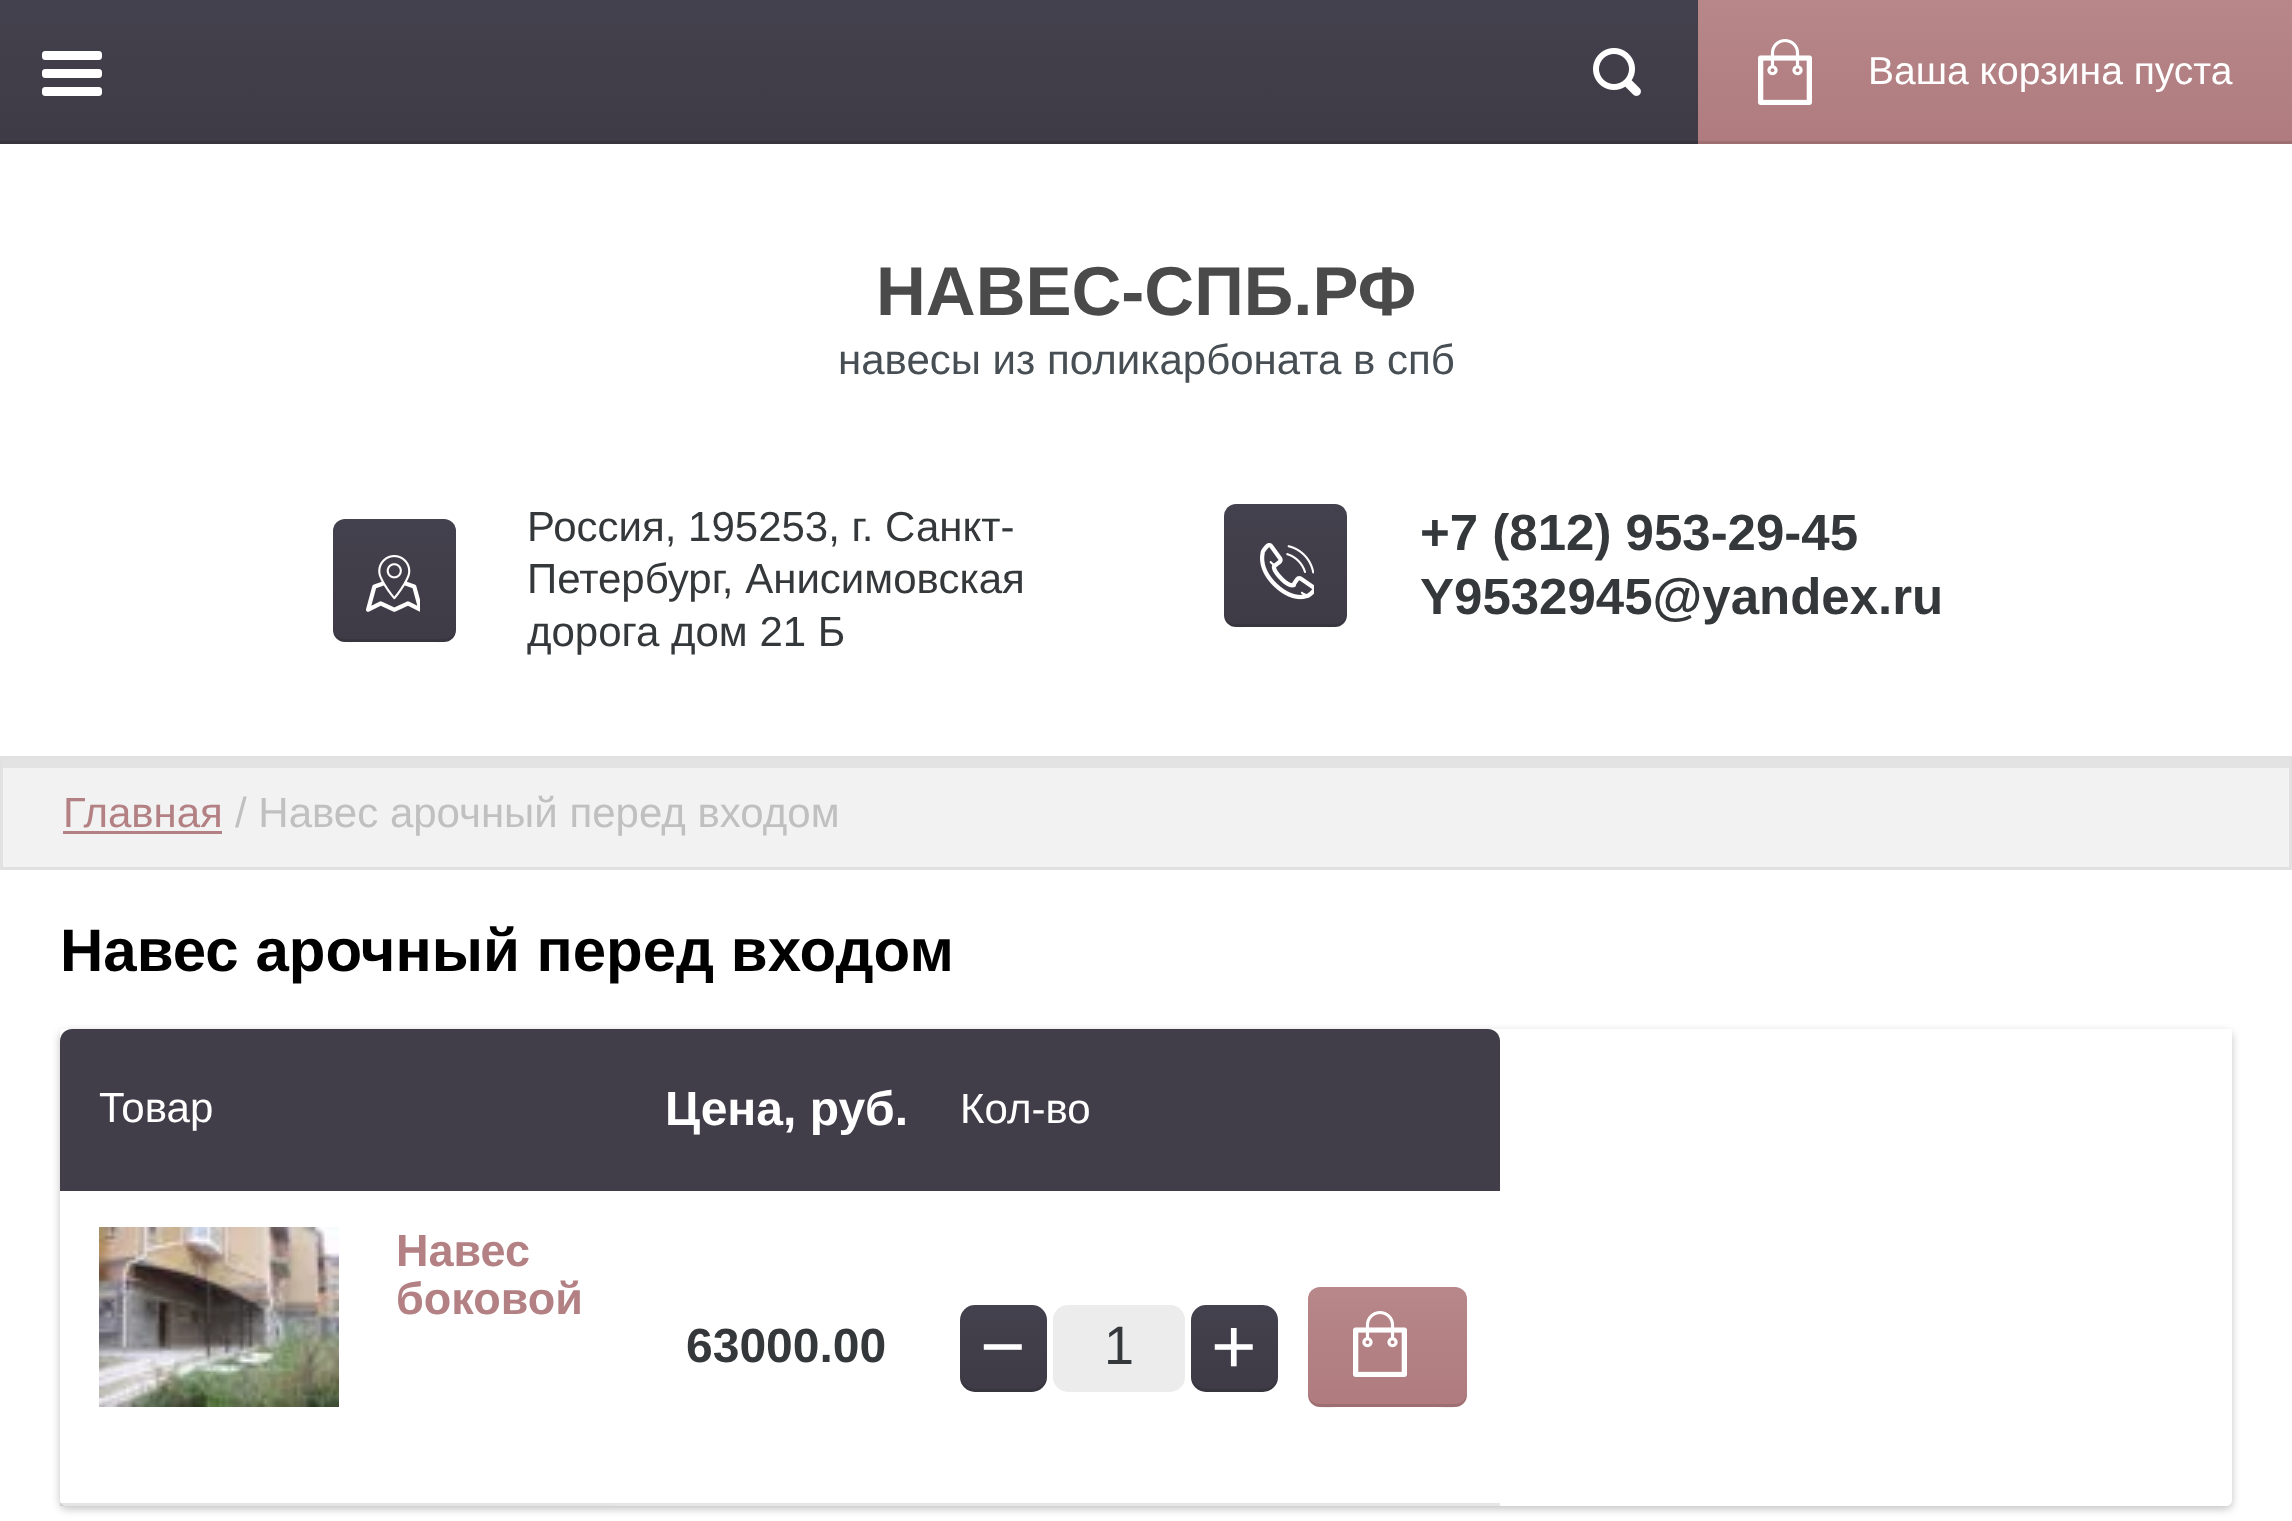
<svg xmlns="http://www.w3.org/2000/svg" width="2292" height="1521">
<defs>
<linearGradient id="g1" gradientUnits="userSpaceOnUse" x1="1146" y1="144" x2="1146" y2="0"><stop offset="0" stop-color="#3e3b46"/><stop offset="1" stop-color="#44414e"/></linearGradient>
<linearGradient id="g2" gradientUnits="userSpaceOnUse" x1="1995" y1="144" x2="1995" y2="0"><stop offset="0" stop-color="#af7b7e"/><stop offset="1" stop-color="#b7878a"/></linearGradient>
<linearGradient id="g3" gradientUnits="userSpaceOnUse" x1="395" y1="642" x2="395" y2="519"><stop offset="0" stop-color="#3e3b46"/><stop offset="1" stop-color="#44414e"/></linearGradient>
<linearGradient id="g4" gradientUnits="userSpaceOnUse" x1="1286" y1="627" x2="1286" y2="504"><stop offset="0" stop-color="#3e3b46"/><stop offset="1" stop-color="#44414e"/></linearGradient>
<linearGradient id="g5" gradientUnits="userSpaceOnUse" x1="1004" y1="1392" x2="1004" y2="1305"><stop offset="0" stop-color="#3e3b46"/><stop offset="1" stop-color="#44414e"/></linearGradient>
<linearGradient id="g6" gradientUnits="userSpaceOnUse" x1="1235" y1="1392" x2="1235" y2="1305"><stop offset="0" stop-color="#3e3b46"/><stop offset="1" stop-color="#44414e"/></linearGradient>
<linearGradient id="g7" gradientUnits="userSpaceOnUse" x1="1388" y1="1407" x2="1388" y2="1287"><stop offset="0" stop-color="#af7b7e"/><stop offset="1" stop-color="#b7878a"/></linearGradient>
</defs>
<rect width="100%" height="100%" fill="#fff"/>
<rect width="1698" height="141" fill="url(#g1)"/>
<image x="42" y="51" width="60" height="45" href="media/1.png"/>
<rect y="141" width="1698" height="3" fill="#38353f"/>
<image x="1593" y="48" width="48" height="48" href="media/2.png"/>
<rect x="1698" width="594" height="141" fill="url(#g2)"/>
<rect x="1698" y="141" width="594" height="3" fill="#9e6f71"/>
<image x="1758" y="39" width="54" height="66" href="media/3.png"/>
<text x="1868" y="84" style="font-family:Liberation Sans;font-size:39px;fill:#fff">Ваша корзина пуста</text>
<text x="876" y="315" style="font-family:Liberation Sans;font-size:69px;font-weight:bold;fill:#4a4a4a">НАВЕС-СПБ.РФ</text>
<text x="838" y="374" style="font-family:Liberation Sans;font-size:42px;fill:#474f54">навесы из поликарбоната в спб</text>
<rect x="333" y="519" width="123" height="123" rx="12" fill="url(#g3)"/>
<path d="M333 627c0 18 14 15 29 15h66c14 0 28 3 28-15c0 7-5 12-12 12h-99c-7 0-12-5-12-12z" fill="#0000001a"/>
<image x="366" y="555" width="54" height="57" href="media/4.png"/>
<text x="527" y="541" style="font-family:Liberation Sans;font-size:42px;fill:#34383a">Россия, 195253, г. Санкт-</text>
<text x="527" y="593" style="font-family:Liberation Sans;font-size:42px;fill:#34383a">Петербург, Анисимовская</text>
<text x="527" y="646" style="font-family:Liberation Sans;font-size:42px;fill:#34383a">дорога дом 21 Б</text>
<rect x="1224" y="504" width="123" height="123" rx="12" fill="url(#g4)"/>
<path d="M1224 612c0 18 14 15 28 15h66c15 0 29 3 29-15c0 7-5 12-12 12h-99c-7 0-12-5-12-12z" fill="#0000001a"/>
<image x="1260" y="543" width="54" height="57" href="media/5.png"/>
<text x="1420" y="550" style="font-family:Liberation Sans;font-size:51px;font-weight:bold;fill:#34383a">+7 (812) 953-29-45</text>
<text x="1420" y="614" style="font-family:Liberation Sans;font-size:51px;font-weight:bold;fill:#34383a">Y9532945@yandex.ru</text>
<rect x="3" y="768" width="2286" height="99" fill="#f2f2f2"/>
<rect x="3" y="759" width="2286" height="9" fill="#e3e3e3"/>
<rect x="1.5" y="757.5" width="2289" height="111" fill="none" stroke="#e1e1e1" stroke-width="3"/>
<text x="63" y="827" style="font-family:Liberation Sans;font-size:42px;fill:#b38184">Главная</text>
<rect x="63" y="831" width="159" height="3" fill="#b38184"/>
<text x="235" y="827" style="font-family:Liberation Sans;font-size:42px;fill:#c0c0c0">/ Навес арочный перед входом</text>
<text x="60" y="971" style="font-family:Liberation Sans;font-size:60px;font-weight:bold;fill:#000">Навес арочный перед входом</text>
<rect x="60" y="1032" width="2172" height="477" rx="6" fill="#0000003d" filter="blur(4.5px)"/>
<path d="M60 1029h2172v471c0 3.5-2.5 6-6 6h-2160c-3.5 0-6-2.5-6-6z" fill="#fff"/>
<path d="M72 1029h540v162h-552v-150c0-6.5 5.5-12 12-12z" fill="#413e4a"/>
<text x="99" y="1122" style="font-family:Liberation Sans;font-size:42px;fill:#fff">Товар</text>
<rect x="612" y="1029" width="696" height="162" fill="#413e4a"/>
<text x="665" y="1125" style="font-family:Liberation Sans;font-size:48px;font-weight:bold;fill:#fff">Цена, руб.</text>
<text x="960" y="1123" style="font-family:Liberation Sans;font-size:42px;fill:#fff">Кол-во</text>
<path d="M1308 1029h180c6.5 0 12 5.5 12 12v150h-192z" fill="#413e4a"/>
<rect x="60" y="1503" width="552" height="3" fill="#0000001a"/>
<image x="99" y="1227" width="240" height="180" href="media/6.png"/>
<text x="396" y="1266" style="font-family:Liberation Sans;font-size:45px;font-weight:bold;fill:#b38184">Навес</text>
<text x="396" y="1314" style="font-family:Liberation Sans;font-size:45px;font-weight:bold;fill:#b38184">боковой</text>
<rect x="612" y="1503" width="888" height="3" fill="#e6e6e6"/>
<text x="686" y="1362" style="font-family:Liberation Sans;font-size:48px;font-weight:bold;fill:#34383a">63000.00</text>
<rect x="960" y="1305" width="87" height="87" rx="15" fill="url(#g5)"/>
<path d="M960 1374v3c0 8 7 15 15 15h57c8 0 15-7 15-15v-3c0 8-7 15-15 15h-57c-8 0-15-7-15-15z" fill="#0000001a"/>
<text x="980" y="1373" style="font-family:Liberation Sans;font-size:78px;fill:#fff">−</text>
<rect x="1053" y="1305" width="132" height="87" rx="15" fill="#ececec"/>
<text x="1104" y="1364" style="font-family:Liberation Sans;font-size:54px;fill:#34383a">1</text>
<rect x="1191" y="1305" width="87" height="87" rx="15" fill="url(#g6)"/>
<path d="M1191 1374v3c0 8 7 15 15 15h57c8 0 15-7 15-15v-3c0 8-7 15-15 15h-57c-8 0-15-7-15-15z" fill="#0000001a"/>
<text x="1211" y="1373" style="font-family:Liberation Sans;font-size:78px;fill:#fff">+</text>
<rect x="1308" y="1287" width="159" height="120" rx="12" fill="url(#g7)"/>
<path d="M1308 1392c0 20 19 15 34 15h90c16 0 35 5 35-15c0 7-5 12-12 12h-135c-7 0-12-5-12-12z" fill="#0000001a"/>
<image x="1353" y="1311" width="54" height="66" href="media/7.png"/>
</svg>
